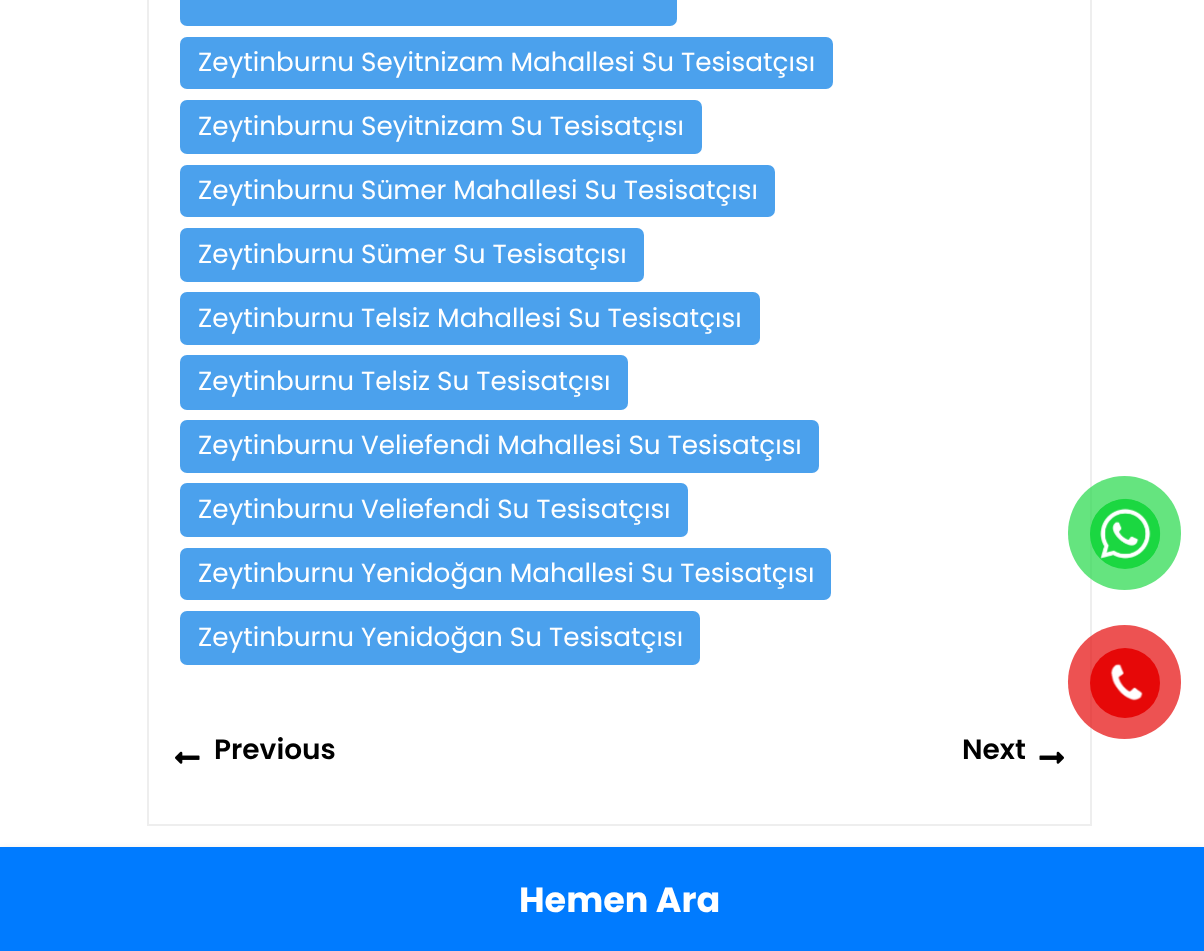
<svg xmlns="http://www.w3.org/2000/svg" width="1204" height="951">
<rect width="100%" height="100%" fill="#fff"/>
<rect x="148" y="-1" width="943" height="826" fill="none" stroke="#eee" stroke-width="2"/>
<rect x="180" y="-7" width="497" height="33" rx="7" fill="#4ba1ed"/>
<rect x="180" y="37" width="653" height="52" rx="7" fill="#4ba1ed"/>
<text x="198" y="71" style="font-family:Poppins;font-size:26.25px;fill:#fff">Zeytinburnu Seyitnizam Mahallesi Su Tesisatçısı</text>
<rect x="180" y="100" width="522" height="54" rx="7" fill="#4ba1ed"/>
<text x="198" y="135" style="font-family:Poppins;font-size:26.25px;fill:#fff">Zeytinburnu Seyitnizam Su Tesisatçısı</text>
<rect x="180" y="165" width="595" height="52" rx="7" fill="#4ba1ed"/>
<text x="198" y="199" style="font-family:Poppins;font-size:26.25px;fill:#fff">Zeytinburnu Sümer Mahallesi Su Tesisatçısı</text>
<rect x="180" y="228" width="464" height="54" rx="7" fill="#4ba1ed"/>
<text x="198" y="263" style="font-family:Poppins;font-size:26.25px;fill:#fff">Zeytinburnu Sümer Su Tesisatçısı</text>
<rect x="180" y="292" width="580" height="53" rx="7" fill="#4ba1ed"/>
<text x="198" y="327" style="font-family:Poppins;font-size:26.25px;fill:#fff">Zeytinburnu Telsiz Mahallesi Su Tesisatçısı</text>
<rect x="180" y="355" width="448" height="55" rx="7" fill="#4ba1ed"/>
<text x="198" y="390" style="font-family:Poppins;font-size:26.25px;fill:#fff">Zeytinburnu Telsiz Su Tesisatçısı</text>
<rect x="180" y="420" width="639" height="53" rx="7" fill="#4ba1ed"/>
<text x="198" y="454" style="font-family:Poppins;font-size:26.25px;fill:#fff">Zeytinburnu Veliefendi Mahallesi Su Tesisatçısı</text>
<rect x="180" y="483" width="508" height="54" rx="7" fill="#4ba1ed"/>
<text x="198" y="518" style="font-family:Poppins;font-size:26.25px;fill:#fff">Zeytinburnu Veliefendi Su Tesisatçısı</text>
<rect x="180" y="548" width="651" height="52" rx="7" fill="#4ba1ed"/>
<text x="198" y="582" style="font-family:Poppins;font-size:26.25px;fill:#fff">Zeytinburnu Yenidoğan Mahallesi Su Tesisatçısı</text>
<rect x="180" y="611" width="520" height="54" rx="7" fill="#4ba1ed"/>
<text x="198" y="646" style="font-family:Poppins;font-size:26.25px;fill:#fff">Zeytinburnu Yenidoğan Su Tesisatçısı</text>
<image x="175" y="751" width="25" height="13" href="media/1.png"/>
<text x="214" y="759" style="font-family:Poppins;font-size:28px;font-weight:600;fill:#000">Previous</text>
<text x="962" y="759" style="font-family:Poppins;font-size:28px;font-weight:600;fill:#000">Next</text>
<image x="1039" y="751" width="25" height="13" href="media/2.png"/>
<rect x="1068" y="476" width="113" height="114" rx="56.5" fill="#23d948b3"/>
<circle cx="1125" cy="534" r="35" fill="#1cd741"/>
<image x="1090" y="498" width="71" height="69" href="media/3.png"/>
<rect x="1068" y="625" width="113" height="114" rx="56.5" fill="#e60808b3"/>
<circle cx="1125" cy="683" r="35" fill="#e60808"/>
<image x="1110" y="663" width="33" height="38" href="media/4.png"/>
<rect y="851" width="1204" height="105" fill="#00000033" filter="blur(4.5px)"/>
<rect y="847" width="1204" height="104" fill="#007bff"/>
<text x="519" y="912" style="font-family:Poppins;font-size:35px;font-weight:bold;fill:#fff">Hemen Ara</text>
</svg>
